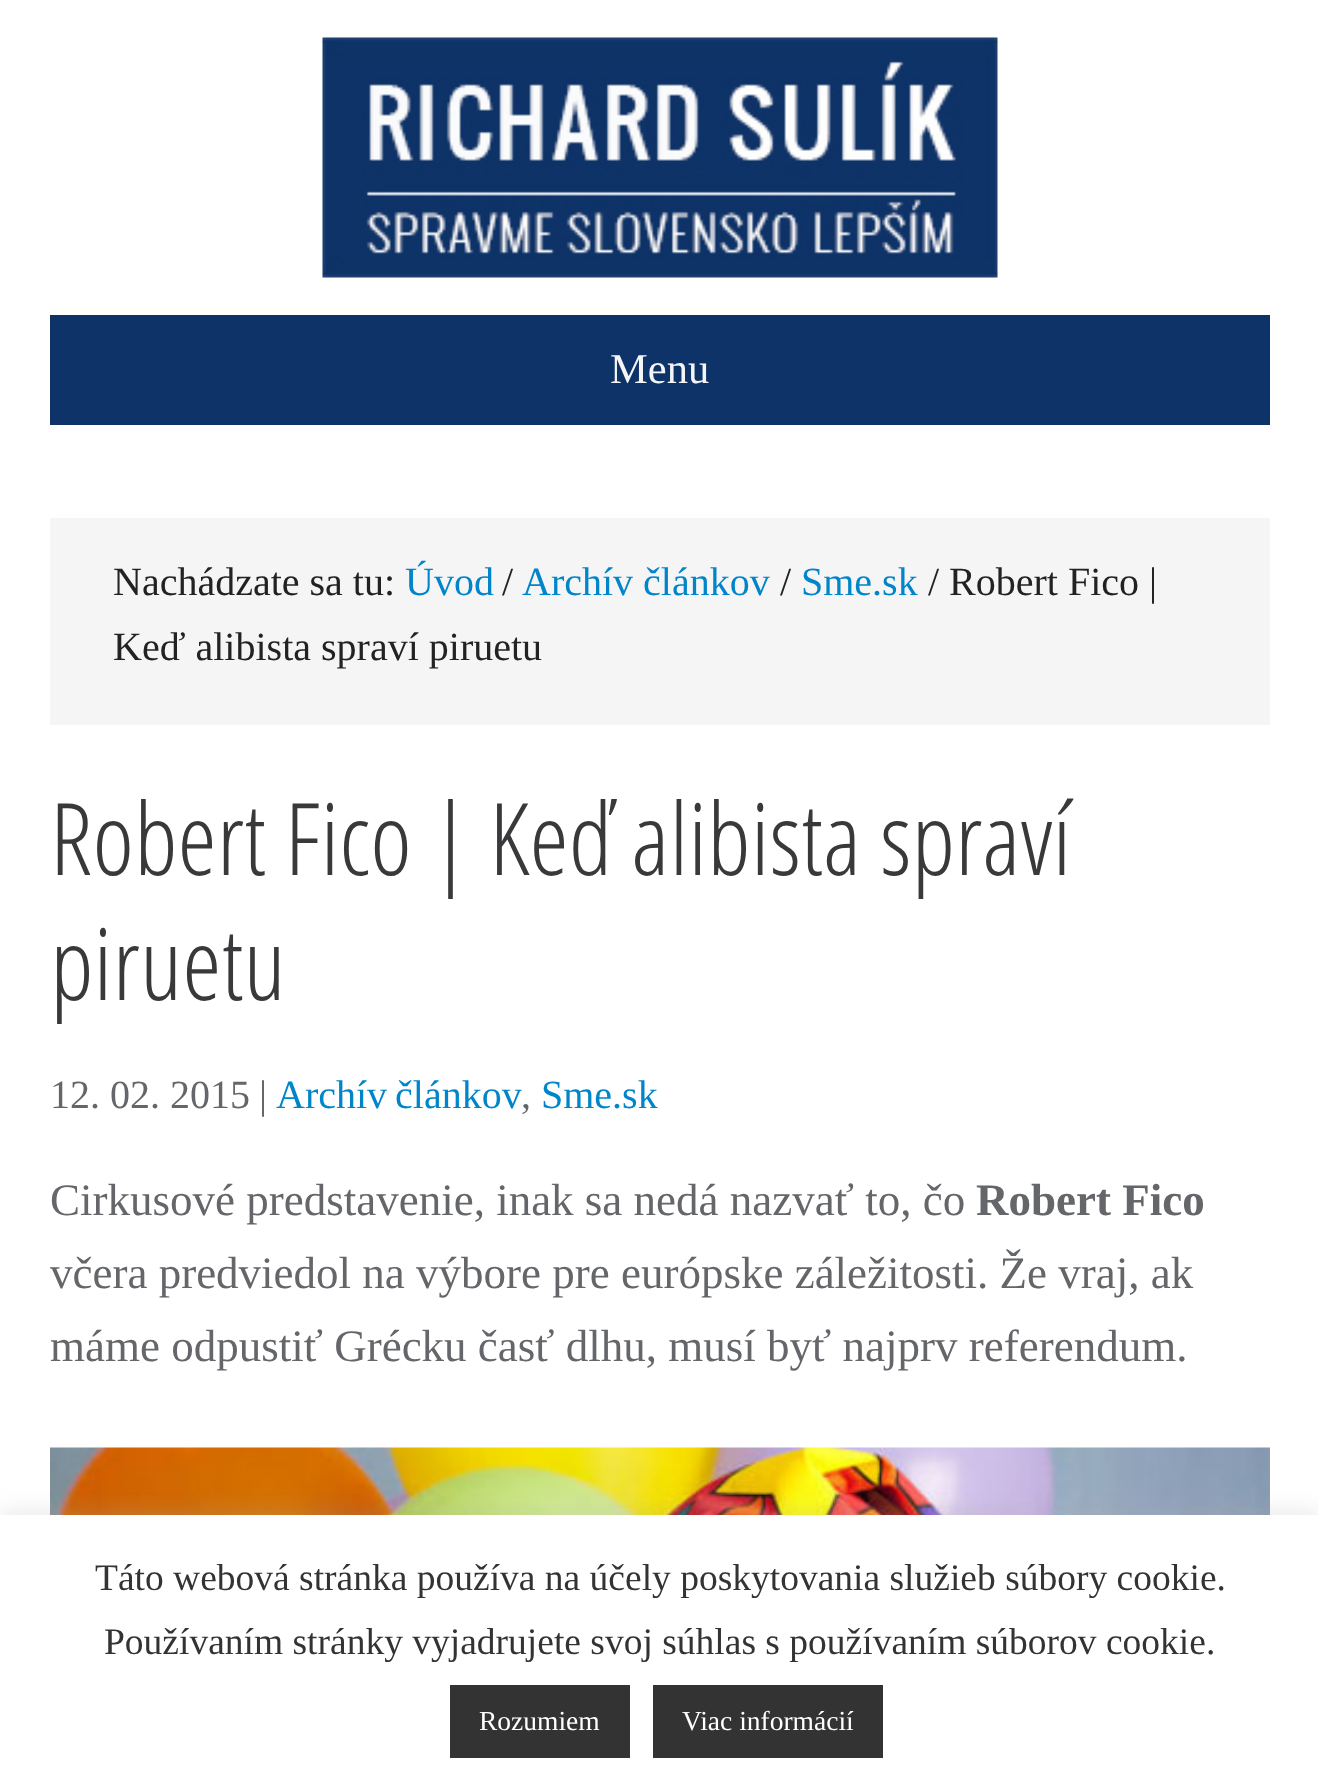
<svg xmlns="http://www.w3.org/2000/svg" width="1318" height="1786">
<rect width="100%" height="100%" fill="#fff"/>
<image x="322" y="37" width="676" height="241" href="media/1.png"/>
<rect x="50" y="315" width="1220" height="110" fill="#0e3369"/>
<text x="610" y="383" style="font-family:Liberation Serif;font-size:42.5px;fill:#f5f5f5">Menu</text>
<rect x="50" y="518" width="1220" height="207" fill="#f5f5f5"/>
<text x="113" y="595" style="font-family:Liberation Serif;font-size:40px;fill:#222">Nachádzate sa tu:</text>
<text x="405" y="595" style="font-family:Liberation Serif;font-size:40px;fill:#0085ca">Úvod</text>
<text x="502" y="595" style="font-family:Liberation Serif;font-size:40px;fill:#222">/</text>
<text x="522" y="595" style="font-family:Liberation Serif;font-size:40px;fill:#0085ca">Archív článkov</text>
<text x="780" y="595" style="font-family:Liberation Serif;font-size:40px;fill:#222">/</text>
<text x="801" y="595" style="font-family:Liberation Serif;font-size:40px;fill:#0085ca">Sme.sk</text>
<text x="928" y="595" style="font-family:Liberation Serif;font-size:40px;fill:#222">/ Robert Fico |</text>
<text x="113" y="660" style="font-family:Liberation Serif;font-size:40px;fill:#222">Keď alibista spraví piruetu</text>
<text x="50" y="875" style="font-family:Open Sans Condensed;font-size:100px;font-weight:300;fill:#39383a">Robert Fico | Keď alibista spraví</text>
<text x="50" y="1000" style="font-family:Open Sans Condensed;font-size:100px;font-weight:300;fill:#39383a">piruetu</text>
<text x="50" y="1108" style="font-family:Liberation Serif;font-size:40px;fill:#646669">12. 02. 2015</text>
<text x="259" y="1108" style="font-family:Liberation Serif;font-size:40px;fill:#646669">|</text>
<text x="276" y="1108" word-spacing="-2" style="font-family:Liberation Serif;font-size:40px;fill:#0085ca">Archív článkov</text>
<text x="521" y="1108" style="font-family:Liberation Serif;font-size:40px;fill:#646669">,</text>
<text x="541" y="1108" style="font-family:Liberation Serif;font-size:40px;fill:#0085ca">Sme.sk</text>
<text x="50" y="1215" style="font-family:Liberation Serif;font-size:45px;fill:#646669">Cirkusové predstavenie, inak sa nedá nazvať to, čo</text>
<text x="976" y="1215" style="font-family:Liberation Serif;font-size:45px;font-weight:bold;fill:#646669">Robert Fico</text>
<text x="50" y="1288" style="font-family:Liberation Serif;font-size:45px;fill:#646669">včera predviedol na výbore pre európske záležitosti. Že vraj, ak</text>
<text x="50" y="1361" style="font-family:Liberation Serif;font-size:45px;fill:#646669">máme odpustiť Grécku časť dlhu, musí byť najprv referendum.</text>
<image x="50" y="1447" width="1220" height="68" href="media/2.png"/>
<rect y="1513" width="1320" height="272" fill="#acabab4d" filter="blur(12.5px)"/>
<rect y="1515" width="1318" height="271" fill="#fff"/>
<text x="95" y="1590" style="font-family:Liberation Serif;font-size:37.5px;fill:#333">Táto webová stránka používa na účely poskytovania služieb súbory cookie.</text>
<text x="104" y="1654" style="font-family:Liberation Serif;font-size:37.5px;fill:#333">Používaním stránky vyjadrujete svoj súhlas s používaním súborov cookie.</text>
<rect x="450" y="1685" width="180" height="73" fill="#333"/>
<text x="479" y="1730" style="font-family:Liberation Serif;font-size:27.5px;fill:#fff">Rozumiem</text>
<rect x="653" y="1685" width="230" height="73" fill="#333"/>
<text x="682" y="1730" style="font-family:Liberation Serif;font-size:27.5px;fill:#fff">Viac informácií</text>
</svg>
